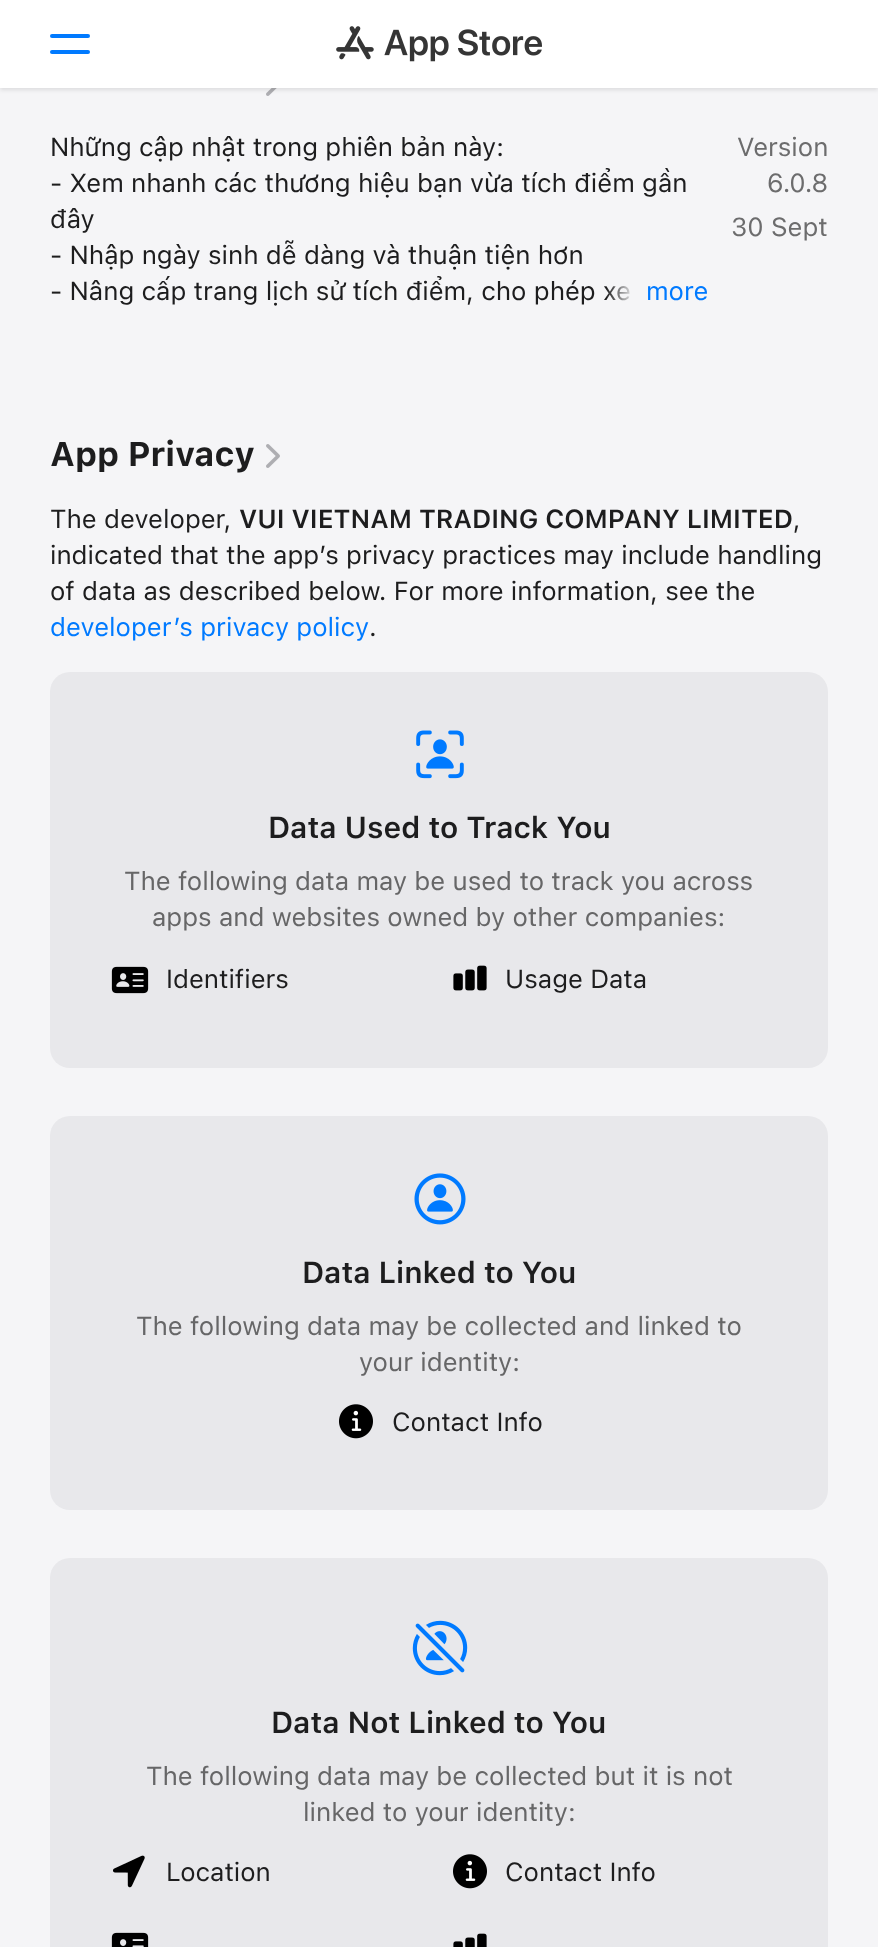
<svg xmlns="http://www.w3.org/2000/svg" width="878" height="1947">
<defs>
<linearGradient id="g1" gradientUnits="userSpaceOnUse" x1="708" y1="292" x2="606" y2="292"><stop offset="0.72" stop-color="#f5f5f7"/><stop offset="1" stop-color="#f5f5f7" stop-opacity="0"/></linearGradient>
</defs>
<rect width="100%" height="100%" fill="#f5f5f7"/>
<image x="266" y="88" width="11" height="8" href="media/2.png"/>
<rect y="2" width="878" height="88" fill="#0000001a" filter="blur(2px)"/>
<rect width="878" height="88" fill="#fff"/>
<rect x="50" y="34" width="40" height="4" rx="2" fill="#007aff"/>
<rect x="50" y="50" width="40" height="4" rx="2" fill="#007aff"/>
<image x="336" y="26" width="206" height="36" href="media/1.png"/>
<text x="50" y="156" style="font-family:SF;font-size:26px;fill:#1d1d1e">Những cập nhật trong phiên bản này:</text>
<text x="50" y="192" style="font-family:SF;font-size:26px;fill:#1d1d1e">- Xem nhanh các thương hiệu bạn vừa tích điểm gần</text>
<text x="50" y="228" style="font-family:SF;font-size:26px;fill:#1d1d1e">đây</text>
<text x="50" y="264" style="font-family:SF;font-size:26px;fill:#1d1d1e">- Nhập ngày sinh dễ dàng và thuận tiện hơn</text>
<text x="50" y="300" style="font-family:SF;font-size:26px;fill:#1d1d1e">- Nâng cấp trang lịch sử tích điểm, cho phép xe</text>
<rect x="607" y="286" width="23" height="15" fill="url(#g1)"/>
<text x="646" y="300" style="font-family:SF;font-size:26px;fill:#007aff">more</text>
<text x="737" y="156" style="font-family:SF;font-size:26px;fill:#6c6c6d">Version</text>
<text x="767" y="192" style="font-family:SF;font-size:26px;fill:#6c6c6d">6.0.8</text>
<text x="731" y="236" style="font-family:SF;font-size:26px;fill:#6c6c6d">30 Sept</text>
<text x="50" y="466" style="font-family:SF;font-size:34px;font-weight:bold;fill:#1d1d1e">App Privacy</text>
<image x="266" y="444" width="14" height="24" href="media/3.png"/>
<text x="50" y="528" style="font-family:SF;font-size:26px;fill:#1d1d1e">The developer,</text>
<text x="239" y="528" style="font-family:SF;font-size:26px;font-weight:600;fill:#1d1d1e">VUI VIETNAM TRADING COMPANY LIMITED</text>
<text x="793" y="528" style="font-family:SF;font-size:26px;fill:#1d1d1e">,</text>
<text x="50" y="564" style="font-family:SF;font-size:26px;fill:#1d1d1e">indicated that the app’s privacy practices may include handling</text>
<text x="50" y="600" style="font-family:SF;font-size:26px;fill:#1d1d1e">of data as described below. For more information, see the</text>
<text x="50" y="636" style="font-family:SF;font-size:26px;fill:#007aff">developer’s privacy policy</text>
<text x="369" y="636" style="font-family:SF;font-size:26px;fill:#1d1d1e">.</text>
<rect x="50" y="672" width="778" height="396" rx="20" fill="#e8e8eb"/>
<image x="416" y="730" width="48" height="49" href="media/4.png"/>
<text x="268" y="838" style="font-family:SF;font-size:30px;font-weight:600;fill:#1d1d1e">Data Used to Track You</text>
<text x="124" y="890" style="font-family:SF;font-size:26px;fill:#666667">The following data may be used to track you across</text>
<text x="152" y="926" style="font-family:SF;font-size:26px;fill:#666667">apps and websites owned by other companies:</text>
<image x="111" y="966" width="38" height="28" href="media/5.png"/>
<text x="166" y="988" style="font-family:SF;font-size:26px;fill:#1d1d1e">Identifiers</text>
<image x="453" y="965" width="34" height="26" href="media/6.png"/>
<text x="505" y="988" style="font-family:SF;font-size:26px;fill:#1d1d1e">Usage Data</text>
<rect x="50" y="1116" width="778" height="394" rx="20" fill="#e8e8eb"/>
<image x="414" y="1173" width="52" height="52" href="media/7.png"/>
<text x="302" y="1283" style="font-family:SF;font-size:30px;font-weight:600;fill:#1d1d1e">Data Linked to You</text>
<text x="136" y="1335" style="font-family:SF;font-size:26px;fill:#666667">The following data may be collected and linked to</text>
<text x="359" y="1371" style="font-family:SF;font-size:26px;fill:#666667">your identity:</text>
<image x="339" y="1404" width="34" height="35" href="media/8.png"/>
<text x="392" y="1431" style="font-family:SF;font-size:26px;fill:#1d1d1e">Contact Info</text>
<rect x="50" y="1558" width="778" height="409" rx="20" fill="#e8e8eb"/>
<image x="412" y="1620" width="56" height="56" href="media/9.png"/>
<text x="271" y="1733" style="font-family:SF;font-size:30px;font-weight:600;fill:#1d1d1e">Data Not Linked to You</text>
<text x="146" y="1785" style="font-family:SF;font-size:26px;fill:#666667">The following data may be collected but it is not</text>
<text x="303" y="1821" style="font-family:SF;font-size:26px;fill:#666667">linked to your identity:</text>
<image x="113" y="1855" width="32" height="33" href="media/10.png"/>
<text x="166" y="1881" style="font-family:SF;font-size:26px;fill:#1d1d1e">Location</text>
<image x="453" y="1854" width="34" height="35" href="media/8.png"/>
<text x="505" y="1881" style="font-family:SF;font-size:26px;fill:#1d1d1e">Contact Info</text>
<image x="111" y="1932" width="38" height="15" href="media/11.png"/>
<image x="453" y="1933" width="34" height="14" href="media/12.png"/>
</svg>
